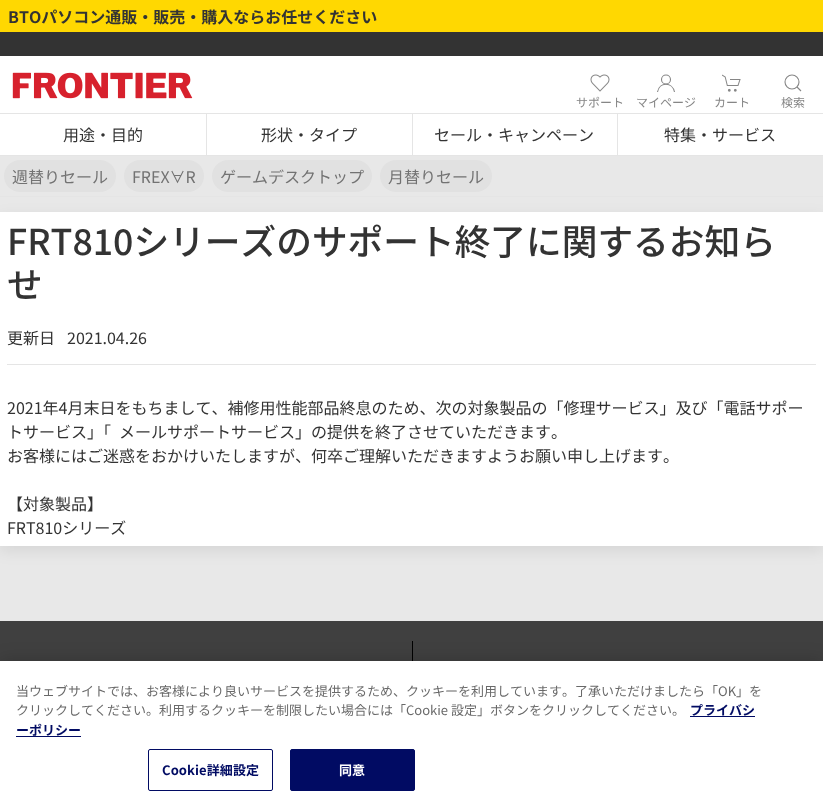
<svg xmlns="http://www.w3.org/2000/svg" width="823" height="807">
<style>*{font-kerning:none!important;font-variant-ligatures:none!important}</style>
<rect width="100%" height="100%" fill="#fff"/>
<rect width="823" height="32" fill="#ffd801"/>
<text x="8" y="23" style="font-family:Noto Sans JP;font-size:16px;font-weight:bold;fill:#333">BTOパソコン通販・販売・購入ならお任せください</text>
<rect y="32" width="823" height="24" fill="#333"/>
<image x="12" y="72" width="181" height="27" href="media/1.png"/>
<image x="590" y="74" width="20" height="18" href="media/2.png"/>
<text x="576" y="107" style="font-family:Noto Sans JP;font-size:12px;fill:#868686">サポート</text>
<circle cx="666" cy="79.5" r="4.5" fill="none" stroke="#868686" stroke-width="1.1"/>
<path d="M657.5 92c2-10.5 15-10 17 0" fill="none" stroke="#868686" stroke-width="1.1"/>
<text x="636" y="107" style="font-family:Noto Sans JP;font-size:12px;fill:#868686">マイページ</text>
<image x="722" y="74" width="19" height="18" href="media/3.png"/>
<text x="714" y="107" style="font-family:Noto Sans JP;font-size:12px;fill:#868686">カート</text>
<circle cx="792" cy="82" r="7" fill="none" stroke="#868686" stroke-width="1.1"/>
<path d="M797 87l4 4z" fill="none" stroke="#868686" stroke-width="1.1"/>
<text x="781" y="107" style="font-family:Noto Sans JP;font-size:12px;fill:#868686">検索</text>
<rect y="113" width="823" height="1" fill="#e5e5e5"/>
<text x="63" y="141" style="font-family:Noto Sans JP;font-size:16px;fill:#333">用途・目的</text>
<rect x="206" y="114" width="1" height="41" fill="#e5e5e5"/>
<text x="261" y="141" style="font-family:Noto Sans JP;font-size:16px;fill:#333">形状・タイプ</text>
<rect x="412" y="114" width="1" height="41" fill="#e5e5e5"/>
<text x="434" y="141" style="font-family:Noto Sans JP;font-size:16px;fill:#333">セール・キャンペーン</text>
<rect x="617" y="114" width="1" height="41" fill="#e5e5e5"/>
<text x="664" y="141" style="font-family:Noto Sans JP;font-size:16px;fill:#333">特集・サービス</text>
<rect y="197" width="823" height="424" fill="#e8e8e8"/>
<rect y="217" width="823" height="334" fill="#00000014" filter="blur(7.5px)"/>
<rect y="156" width="823" height="40" fill="#e8e8e8"/>
<rect y="155" width="823" height="1" fill="#e5e5e5"/>
<rect y="196" width="823" height="1" fill="#e5e5e5"/>
<rect x="4" y="160" width="112" height="32" rx="16" fill="#e1e1e1"/>
<text x="12" y="183" style="font-family:Noto Sans JP;font-size:16px;fill:#727272">週替りセール</text>
<rect x="124" y="160" width="80" height="32" rx="16" fill="#e1e1e1"/>
<text x="132" y="183" style="font-family:Noto Sans JP;font-size:16px;fill:#727272">FREX∀R</text>
<rect x="212" y="160" width="160" height="32" rx="16" fill="#e1e1e1"/>
<text x="220" y="183" style="font-family:Noto Sans JP;font-size:16px;fill:#727272">ゲームデスクトップ</text>
<rect x="380" y="160" width="112" height="32" rx="16" fill="#e1e1e1"/>
<text x="388" y="183" style="font-family:Noto Sans JP;font-size:16px;fill:#727272">月替りセール</text>
<rect y="212" width="823" height="334" fill="#fff"/>
<text x="7" y="255" style="font-family:Noto Sans JP;font-size:35.7px;font-weight:500;fill:#333">FRT810シリーズのサポート終了に関するお知ら</text>
<text x="7" y="298" style="font-family:Noto Sans JP;font-size:35.7px;font-weight:500;fill:#333">せ</text>
<text x="7" y="344" style="font-family:Noto Sans JP;font-size:16px;fill:#333">更新日</text>
<text x="67" y="344" style="font-family:Noto Sans JP;font-size:16px;fill:#333">2021.04.26</text>
<rect x="7" y="364" width="809" height="1" fill="#e5e5e5"/>
<text x="7" y="414" style="font-family:Noto Sans JP;font-size:16px;fill:#333">2021年4月末日をもちまして、補修用性能部品終息のため、次の対象製品の「修理サービス」及び「電話サポー</text>
<text x="7" y="438" style="font-family:Noto Sans JP;font-size:16px;fill:#333">トサービス」「</text>
<text x="119" y="438" style="font-family:Noto Sans JP;font-size:16px;fill:#333">メールサポートサービス」の提供を終了させていただきます。</text>
<text x="7" y="462" style="font-family:Noto Sans JP;font-size:16px;fill:#333">お客様にはご迷惑をおかけいたしますが、何卒ご理解いただきますようお願い申し上げます。</text>
<text x="7" y="510" style="font-family:Noto Sans JP;font-size:16px;fill:#333">【対象製品】</text>
<text x="7" y="534" style="font-family:Noto Sans JP;font-size:16px;fill:#333">FRT810シリーズ</text>
<rect y="621" width="823" height="40" fill="#404040"/>
<rect x="412" y="641" width="1" height="20" fill="#000"/>
<rect y="661" width="823" height="146" fill="#00000033" filter="blur(9px)"/>
<rect y="661" width="823" height="146" fill="#fff"/>
<text x="16" y="696" style="font-family:Noto Sans JP;font-size:13px;fill:#696969">当ウェブサイトでは、お客様により良いサービスを提供するため、クッキーを利用しています。了承いただけましたら「OK」を</text>
<text x="16" y="715" style="font-family:Noto Sans JP;font-size:13px;fill:#696969">クリックしてください。利用するクッキーを制限したい場合には「Cookie 設定」ボタンをクリックしてください。</text>
<text x="690" y="715" style="font-family:Noto Sans JP;font-size:13px;font-weight:bold;fill:#010b63">プライバシ</text>
<rect x="690" y="716" width="65" height="1" fill="#010b63"/>
<text x="16" y="735" style="font-family:Noto Sans JP;font-size:13px;font-weight:bold;fill:#010b63">ーポリシー</text>
<rect x="16" y="736" width="65" height="1" fill="#010b63"/>
<rect x="148.5" y="749.5" width="124" height="41" rx="1.5" fill="none" stroke="#010b63"/>
<text x="162" y="775" style="font-family:Noto Sans JP;font-size:13px;font-weight:bold;letter-spacing:0.1px;fill:#010b63">Cookie詳細設定</text>
<rect x="290.5" y="749.5" width="124" height="41" rx="1.5" fill="#010b63" stroke="#010b63"/>
<text x="339" y="775" style="font-family:Noto Sans JP;font-size:13px;font-weight:bold;letter-spacing:0.1px;fill:#fff">同意</text>
</svg>
